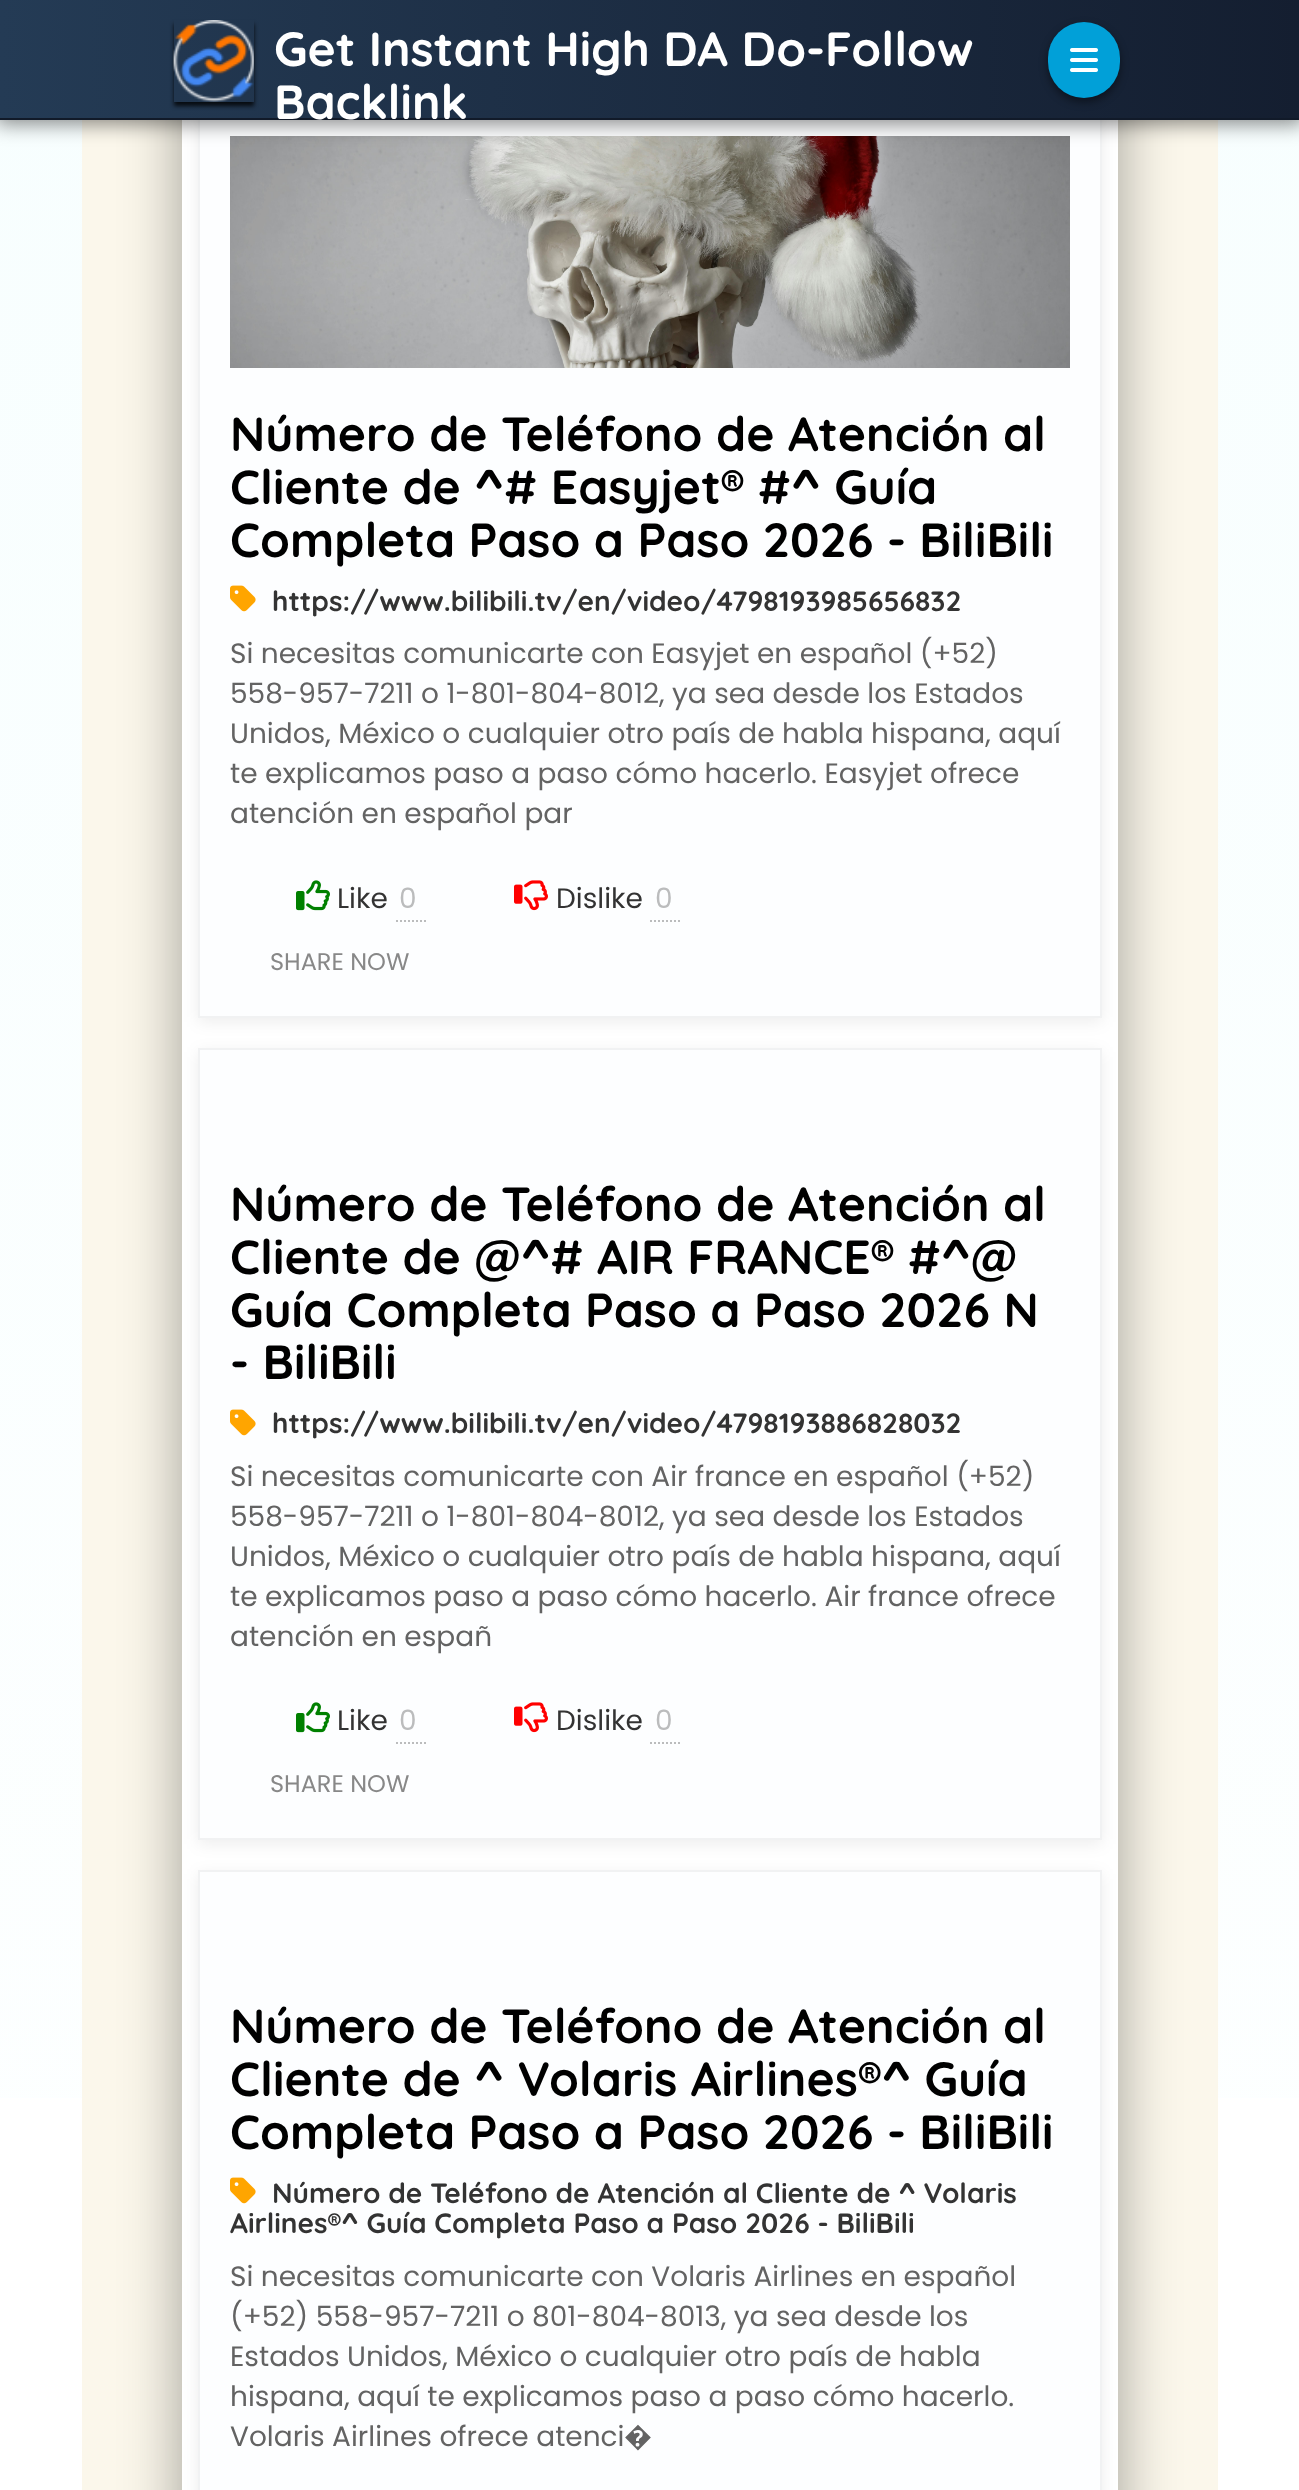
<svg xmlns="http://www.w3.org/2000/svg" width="1299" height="2490">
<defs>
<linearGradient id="g1" gradientUnits="userSpaceOnUse" x1="650" y1="-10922" x2="650" y2="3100"><stop offset="0" stop-color="#dcfbfc"/><stop offset="1" stop-color="#fff"/></linearGradient>
<linearGradient id="g2" gradientUnits="userSpaceOnUse" x1="0" y1="59" x2="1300" y2="59"><stop offset="0" stop-color="#243b55"/><stop offset="1" stop-color="#141e30"/></linearGradient>
<clipPath id="clip1"><path d="M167 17h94v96h-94zm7 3h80v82h-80z" clip-rule="evenodd"/></clipPath>
</defs>
<rect width="100%" height="100%" fill="#fff"/>
<rect y="120" width="1299" height="1978" fill="url(#g1)"/>
<rect x="82" y="120" width="1136" height="2370" fill="#fbf7eb"/>
<rect x="182" y="-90" width="936" height="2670" fill="#0000005c" filter="blur(30px)"/>
<rect x="182" y="120" width="936" height="2370" fill="#fff"/>
<rect x="198" y="108" width="904" height="914" fill="#00000012" filter="blur(8px)"/>
<rect x="200" y="120" width="900" height="896" fill="#fdfeff"/>
<rect x="199" y="105" width="902" height="912" fill="none" stroke="#f1f2f3" stroke-width="2"/>
<image x="230" y="136" width="840" height="232" href="media/3.png"/>
<rect x="-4" y="-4" width="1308" height="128" fill="#00000078" filter="blur(10px)"/>
<rect width="1299" height="118" fill="url(#g2)"/>
<rect y="118" width="1299" height="2" fill="#111a29"/>
<g clip-path="url(#clip1)">
<rect x="174" y="24" width="80" height="82" fill="#000000cc" filter="blur(2px)"/>
</g>
<image x="173" y="20" width="81" height="82" href="media/1.png"/>
<text x="274" y="66" style="font-family:Quicksand;font-size:48px;font-weight:bold;fill:#fff">Get Instant High DA Do-Follow</text>
<text x="274" y="119" style="font-family:Quicksand;font-size:48px;font-weight:bold;fill:#fff">Backlink</text>
<rect x="1048" y="26" width="72" height="76" rx="36" fill="#00000073" filter="blur(4px)"/>
<rect x="1048" y="22" width="72" height="76" rx="36" fill="#01a0d8"/>
<image x="1070" y="48" width="28" height="24" href="media/2.png"/>
<text x="230" y="451" style="font-family:Quicksand;font-size:48px;font-weight:bold;fill:#000">Número de Teléfono de Atención al</text>
<text x="230" y="504" style="font-family:Quicksand;font-size:48px;font-weight:bold;fill:#000">Cliente de ^# Easyjet® #^ Guía</text>
<text x="230" y="557" style="font-family:Quicksand;font-size:48px;font-weight:bold;fill:#000">Completa Paso a Paso 2026 - BiliBili</text>
<image x="230" y="585" width="26" height="27" href="media/4.png"/>
<text x="272" y="611" style="font-family:Quicksand;font-size:28px;font-weight:bold;fill:#333">https://www.bilibili.tv/en/video/4798193985656832</text>
<text x="230" y="663" style="font-family:Poppins;font-size:28px;fill:#636363">Si necesitas comunicarte con Easyjet en español (+52)</text>
<text x="230" y="703" style="font-family:Poppins;font-size:28px;fill:#636363">558-957-7211 o 1-801-804-8012, ya sea desde los Estados</text>
<text x="230" y="743" style="font-family:Poppins;font-size:28px;fill:#636363">Unidos, México o cualquier otro país de habla hispana, aquí</text>
<text x="230" y="783" style="font-family:Poppins;font-size:28px;fill:#636363">te explicamos paso a paso cómo hacerlo. Easyjet ofrece</text>
<text x="230" y="823" style="font-family:Poppins;font-size:28px;fill:#636363">atención en español par</text>
<image x="296" y="880" width="34" height="31" href="media/5.png"/>
<text x="337" y="908" style="font-family:Poppins;font-size:28px;fill:#333">Like</text>
<path d="M396 921h32" fill="none" stroke="#bbbcbd" stroke-width="2" stroke-dasharray="2 2"/>
<text x="399" y="908" style="font-family:Poppins;font-size:28px;fill:#bbbcbd">0</text>
<image x="514" y="880" width="34" height="31" href="media/6.png"/>
<text x="556" y="908" style="font-family:Poppins;font-size:28px;fill:#333">Dislike</text>
<path d="M650 921h32" fill="none" stroke="#bbbcbd" stroke-width="2" stroke-dasharray="2 2"/>
<text x="655" y="908" style="font-family:Poppins;font-size:28px;fill:#bbbcbd">0</text>
<text x="270" y="970" style="font-family:Poppins;font-size:24px;fill:#888">SHARE NOW</text>
<rect x="198" y="1052" width="904" height="792" fill="#00000012" filter="blur(8px)"/>
<rect x="199" y="1049" width="902" height="790" fill="#fdfeff" stroke="#f1f2f3" stroke-width="2"/>
<text x="230" y="1221" style="font-family:Quicksand;font-size:48px;font-weight:bold;fill:#000">Número de Teléfono de Atención al</text>
<text x="230" y="1274" style="font-family:Quicksand;font-size:48px;font-weight:bold;fill:#000">Cliente de @^# AIR FRANCE® #^@</text>
<text x="230" y="1327" style="font-family:Quicksand;font-size:48px;font-weight:bold;fill:#000">Guía Completa Paso a Paso 2026 N</text>
<text x="230" y="1379" style="font-family:Quicksand;font-size:48px;font-weight:bold;fill:#000">- BiliBili</text>
<image x="230" y="1409" width="26" height="27" href="media/4.png"/>
<text x="272" y="1433" style="font-family:Quicksand;font-size:28px;font-weight:bold;fill:#333">https://www.bilibili.tv/en/video/4798193886828032</text>
<text x="230" y="1486" style="font-family:Poppins;font-size:28px;fill:#636363">Si necesitas comunicarte con Air france en español (+52)</text>
<text x="230" y="1526" style="font-family:Poppins;font-size:28px;fill:#636363">558-957-7211 o 1-801-804-8012, ya sea desde los Estados</text>
<text x="230" y="1566" style="font-family:Poppins;font-size:28px;fill:#636363">Unidos, México o cualquier otro país de habla hispana, aquí</text>
<text x="230" y="1606" style="font-family:Poppins;font-size:28px;fill:#636363">te explicamos paso a paso cómo hacerlo. Air france ofrece</text>
<text x="230" y="1646" style="font-family:Poppins;font-size:28px;fill:#636363">atención en españ</text>
<image x="296" y="1702" width="34" height="31" href="media/5.png"/>
<text x="337" y="1730" style="font-family:Poppins;font-size:28px;fill:#333">Like</text>
<path d="M396 1743h32" fill="none" stroke="#bbbcbd" stroke-width="2" stroke-dasharray="2 2"/>
<text x="399" y="1730" style="font-family:Poppins;font-size:28px;fill:#bbbcbd">0</text>
<image x="514" y="1702" width="34" height="31" href="media/6.png"/>
<text x="556" y="1730" style="font-family:Poppins;font-size:28px;fill:#333">Dislike</text>
<path d="M650 1743h32" fill="none" stroke="#bbbcbd" stroke-width="2" stroke-dasharray="2 2"/>
<text x="655" y="1730" style="font-family:Poppins;font-size:28px;fill:#bbbcbd">0</text>
<text x="270" y="1792" style="font-family:Poppins;font-size:24px;fill:#888">SHARE NOW</text>
<rect x="198" y="1874" width="904" height="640" fill="#00000012" filter="blur(8px)"/>
<rect x="199" y="1871" width="902" height="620" fill="#fdfeff" stroke="#f1f2f3" stroke-width="2"/>
<text x="230" y="2043" style="font-family:Quicksand;font-size:48px;font-weight:bold;fill:#000">Número de Teléfono de Atención al</text>
<text x="230" y="2096" style="font-family:Quicksand;font-size:48px;font-weight:bold;fill:#000">Cliente de ^ Volaris Airlines®^ Guía</text>
<text x="230" y="2149" style="font-family:Quicksand;font-size:48px;font-weight:bold;fill:#000">Completa Paso a Paso 2026 - BiliBili</text>
<image x="230" y="2177" width="26" height="27" href="media/4.png"/>
<text x="272" y="2203" style="font-family:Quicksand;font-size:28px;font-weight:bold;fill:#333">Número de Teléfono de Atención al Cliente de ^ Volaris</text>
<text x="230" y="2233" style="font-family:Quicksand;font-size:28px;font-weight:bold;fill:#333">Airlines®^ Guía Completa Paso a Paso 2026 - BiliBili</text>
<text x="230" y="2286" style="font-family:Poppins;font-size:28px;fill:#636363">Si necesitas comunicarte con Volaris Airlines en español</text>
<text x="230" y="2326" style="font-family:Poppins;font-size:28px;fill:#636363">(+52) 558-957-7211 o 801-804-8013, ya sea desde los</text>
<text x="230" y="2366" style="font-family:Poppins;font-size:28px;fill:#636363">Estados Unidos, México o cualquier otro país de habla</text>
<text x="230" y="2406" style="font-family:Poppins;font-size:28px;fill:#636363">hispana, aquí te explicamos paso a paso cómo hacerlo.</text>
<text x="230" y="2446" style="font-family:Poppins;font-size:28px;fill:#636363">Volaris Airlines ofrece atenci</text>
<text x="624" y="2446" style="font-family:Noto Sans;font-size:28px;fill:#636363">�</text>
</svg>
